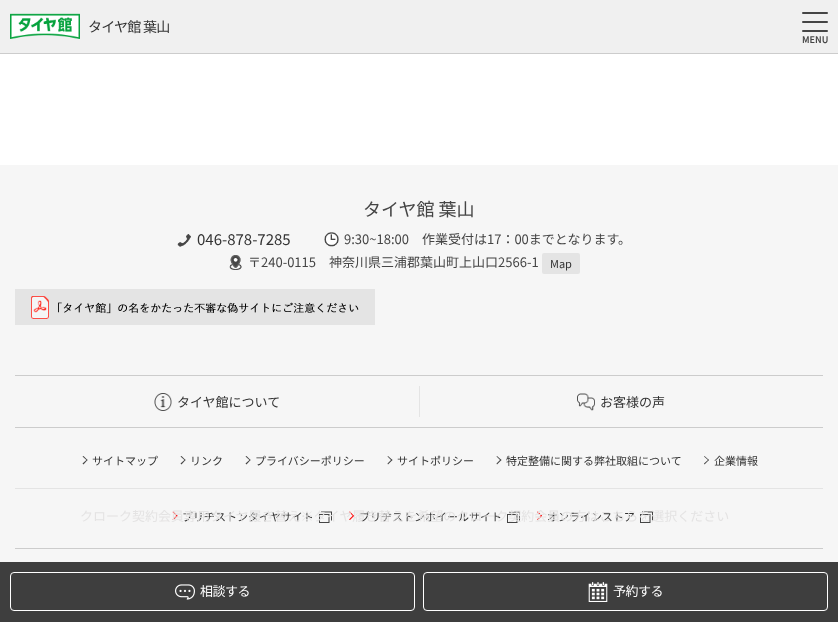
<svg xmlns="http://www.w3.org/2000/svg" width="838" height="622">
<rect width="100%" height="100%" fill="#fff"/>
<rect width="838" height="53" fill="#f0f0f0"/>
<rect y="53" width="838" height="1" fill="#ccc"/>
<image x="10" y="13" width="70" height="26" href="media/1.png"/>
<text x="88" y="32" style="font-family:Noto Sans JP;font-size:14px;letter-spacing:-0.75px;fill:#333">タイヤ館 葉山</text>
<rect x="802" y="12" width="26" height="2" rx="1" fill="#454545"/>
<rect x="802" y="21" width="26" height="2" rx="1" fill="#454545"/>
<rect x="802" y="30" width="26" height="2" rx="1" fill="#454545"/>
<text x="802" y="43" style="font-family:Noto Sans JP;font-size:9px;font-weight:600;fill:#454545">MENU</text>
<rect y="165" width="838" height="397" fill="#f6f6f6"/>
<text x="363" y="216" style="font-family:Noto Sans JP;font-size:18px;fill:#454545">タイヤ館 葉山</text>
<image x="177" y="234" width="14" height="13" href="media/2.png"/>
<text x="197" y="245" style="font-family:Noto Sans JP;font-size:15px;fill:#333">046-878-7285</text>
<image x="324" y="232" width="15" height="15" href="media/3.png"/>
<text x="344" y="244" style="font-family:Noto Sans JP;font-size:13px;fill:#454545">9:30~18:00　作業受付は17：00までとなります。</text>
<image x="229" y="255" width="13" height="15" href="media/4.png"/>
<text x="248" y="267" style="font-family:Noto Sans JP;font-size:13px;fill:#454545">〒240-0115　神奈川県三浦郡葉山町上山口2566-1</text>
<rect x="542" y="253" width="38" height="21" rx="2" fill="#e4e4e4"/>
<text x="550" y="268" style="font-family:Noto Sans JP;font-size:11px;fill:#333">Map</text>
<image x="15" y="289" width="360" height="36" href="media/5.png"/>
<rect x="15" y="375" width="808" height="1" fill="#ccc"/>
<image x="154" y="393" width="18" height="18" href="media/6.png"/>
<text x="177" y="407" style="font-family:Noto Sans JP;font-size:13px;fill:#333">タイヤ館について</text>
<rect x="419" y="386" width="1" height="31" fill="#e4e4e4"/>
<image x="577" y="393" width="18" height="18" href="media/7.png"/>
<text x="600" y="407" style="font-family:Noto Sans JP;font-size:13px;fill:#333">お客様の声</text>
<rect x="15" y="427" width="808" height="1" fill="#ccc"/>
<path d="M83.5 456l4 4l-.5 .5l-4.5-4z" fill="#454545"/>
<path d="M87 459.5l.5 .5l-4 4.5l-1-1z" fill="#454545"/>
<text x="92" y="465" style="font-family:Noto Sans JP;font-size:11px;fill:#333">サイトマップ</text>
<path d="M181.5 456l4 4l-.5 .5l-4.5-4z" fill="#454545"/>
<path d="M185 459.5l.5 .5l-4 4.5l-1-1z" fill="#454545"/>
<text x="190" y="465" style="font-family:Noto Sans JP;font-size:11px;fill:#333">リンク</text>
<path d="M246.5 456l4 4l-.5 .5l-4.5-4z" fill="#454545"/>
<path d="M250 459.5l.5 .5l-4 4.5l-1-1z" fill="#454545"/>
<text x="255" y="465" style="font-family:Noto Sans JP;font-size:11px;fill:#333">プライバシーポリシー</text>
<path d="M388 456l4.5 4l-1 .5l-4-4z" fill="#454545"/>
<path d="M391.5 459.5l1 .5l-4.5 4.5l-.5-1z" fill="#454545"/>
<text x="397" y="465" style="font-family:Noto Sans JP;font-size:11px;fill:#333">サイトポリシー</text>
<path d="M497 456l4.5 4l-1 .5l-4-4z" fill="#454545"/>
<path d="M500.5 459.5l1 .5l-4.5 4.5l-.5-1z" fill="#454545"/>
<text x="506" y="465" style="font-family:Noto Sans JP;font-size:11px;fill:#333">特定整備に関する弊社取組について</text>
<path d="M704.5 456l4.5 4l-.5 .5l-4.5-4z" fill="#454545"/>
<path d="M708.5 459.5l.5 .5l-4.5 4.5l-.5-1z" fill="#454545"/>
<text x="714" y="465" style="font-family:Noto Sans JP;font-size:11px;fill:#333">企業情報</text>
<rect x="15" y="488" width="808" height="1" fill="#e4e4e4"/>
<path d="M173.5 511.5l4 4.5l-.5 .5l-4.5-4.5z" fill="#f00"/>
<path d="M177 515l.5 1l-4 4l-1-.5z" fill="#f00"/>
<text x="182" y="521" style="font-family:Noto Sans JP;font-size:11px;fill:#333">ブリヂストンタイヤサイト</text>
<image x="319" y="511" width="13" height="12" href="media/8.png"/>
<path d="M350 511.5l4 4.5l-.5 .5l-4.5-4.5z" fill="#f00"/>
<path d="M353.5 515l.5 1l-4 4l-1-.5z" fill="#f00"/>
<text x="359" y="521" style="font-family:Noto Sans JP;font-size:11px;fill:#333">ブリヂストンホイールサイト</text>
<image x="507" y="511" width="13" height="12" href="media/8.png"/>
<path d="M538 511.5l4 4.5l-.5 .5l-4.5-4.5z" fill="#f00"/>
<path d="M541.5 515l.5 1l-4 4l-1-.5z" fill="#f00"/>
<text x="547" y="521" style="font-family:Noto Sans JP;font-size:11px;fill:#333">オンラインストア</text>
<image x="640" y="511" width="13" height="12" href="media/8.png"/>
<rect x="15" y="548" width="808" height="1" fill="#ccc"/>
<text x="80" y="521" style="font-family:Noto Sans JP;font-size:13px;fill:#e4e3e3">クローク契約会員専用タイヤ履き替え※タイヤ履き替えを希望のクローク契約会員の方はこちらを選択ください</text>
<rect y="562" width="838" height="60" fill="#3e3e3e"/>
<rect x="10.5" y="572.5" width="404" height="38" rx="3.5" fill="none" stroke="#fff"/>
<image x="175" y="584" width="20" height="16" href="media/9.png"/>
<text x="200" y="596" style="font-family:Noto Sans JP;font-size:13px;letter-spacing:-0.5px;fill:#fff">相談する</text>
<rect x="423.5" y="572.5" width="404" height="38" rx="3.5" fill="none" stroke="#fff"/>
<image x="588" y="582" width="20" height="20" href="media/10.png"/>
<text x="613" y="596" style="font-family:Noto Sans JP;font-size:13px;letter-spacing:-0.5px;fill:#fff">予約する</text>
</svg>
